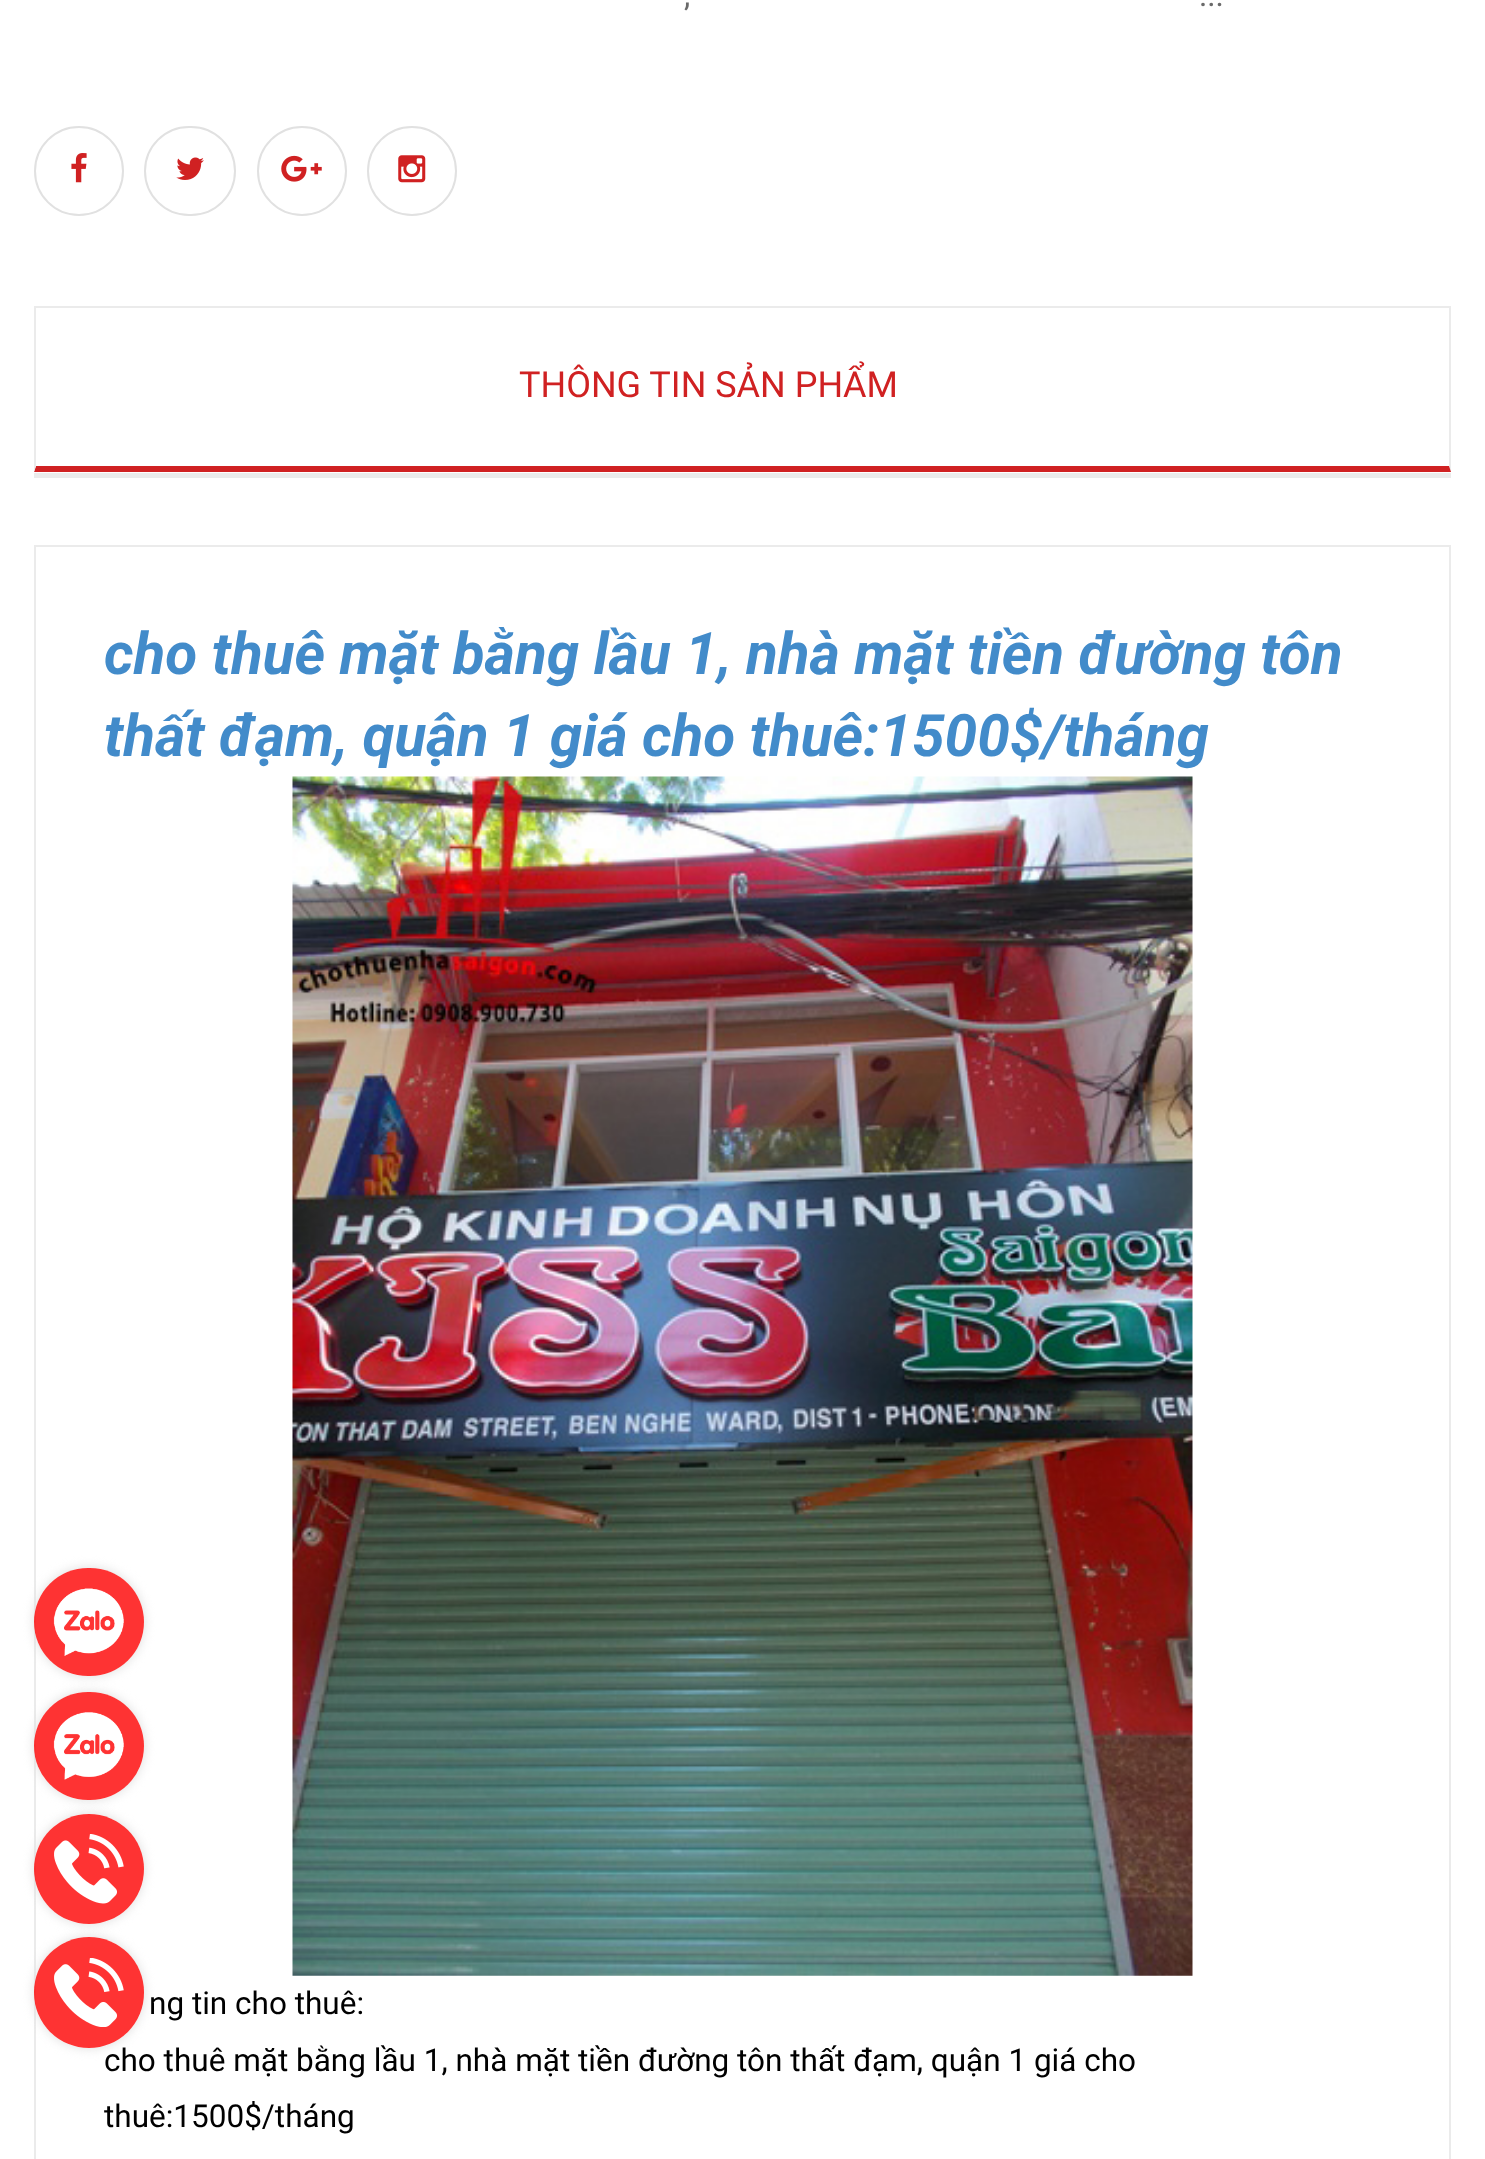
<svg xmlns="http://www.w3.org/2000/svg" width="1485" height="2159">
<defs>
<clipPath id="clip1"><path d="M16 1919h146v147h-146zm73 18c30.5 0 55 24.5 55 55v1c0 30.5-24.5 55-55 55c-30.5 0-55-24.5-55-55v-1c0-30.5 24.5-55 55-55z" clip-rule="evenodd"/></clipPath>
<clipPath id="clip2"><path d="M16 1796h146v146h-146zm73 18c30.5 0 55 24.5 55 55c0 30.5-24.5 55-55 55c-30.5 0-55-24.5-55-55c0-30.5 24.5-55 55-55z" clip-rule="evenodd"/></clipPath>
<clipPath id="clip3"><path d="M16 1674h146v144h-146zm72 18h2c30 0 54 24 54 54c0 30-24 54-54 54h-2c-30 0-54-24-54-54c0-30 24-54 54-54z" clip-rule="evenodd"/></clipPath>
<clipPath id="clip4"><path d="M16 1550h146v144h-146zm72 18h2c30 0 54 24 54 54c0 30-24 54-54 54h-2c-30 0-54-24-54-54c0-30 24-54 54-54z" clip-rule="evenodd"/></clipPath>
</defs>
<rect width="100%" height="100%" fill="#fff"/>
<rect x="35" y="546" width="1415" height="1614" fill="none" stroke="#ebebeb" stroke-width="2"/>
<text x="104" y="2071" style="font-family:Roboto;font-size:31.5px;fill:#000">cho thuê mặt bằng lầu 1, nhà mặt tiền đường tôn thất đạm, quận 1 giá cho</text>
<g clip-path="url(#clip1)">
<rect x="34" y="1937" width="110" height="111" rx="55" fill="#ddd" filter="blur(5.5px)"/>
</g>
<rect x="34" y="1937" width="110" height="111" rx="55" fill="#fe0000cc"/>
<g clip-path="url(#clip2)">
<rect x="34" y="1814" width="110" height="110" rx="55" fill="#ddd" filter="blur(5.5px)"/>
</g>
<circle cx="89" cy="1869" r="55" fill="#fe0000cc"/>
<g clip-path="url(#clip3)">
<rect x="34" y="1692" width="110" height="108" rx="54" fill="#ddd" filter="blur(5.5px)"/>
</g>
<rect x="34" y="1692" width="110" height="108" rx="54" fill="#fe0000cc"/>
<g clip-path="url(#clip4)">
<rect x="34" y="1568" width="110" height="108" rx="54" fill="#ddd" filter="blur(5.5px)"/>
</g>
<rect x="34" y="1568" width="110" height="108" rx="54" fill="#fe0000cc"/>
<image x="53" y="1588" width="71" height="68" href="media/1.png"/>
<text x="684" y="6" style="font-family:Roboto;font-size:31.5px;fill:#6a6a6a">,</text>
<text x="1199" y="6" style="font-family:Roboto;font-size:31.5px;fill:#6a6a6a">...</text>
<circle cx="79" cy="171" r="44" fill="none" stroke="#e1e1e1" stroke-width="2"/>
<image x="71" y="153" width="16" height="30" href="media/2.png"/>
<rect x="145" y="127" width="90" height="88" rx="44" fill="none" stroke="#e1e1e1" stroke-width="2"/>
<image x="176" y="157" width="28" height="23" href="media/3.png"/>
<circle cx="302" cy="171" r="44" fill="none" stroke="#e1e1e1" stroke-width="2"/>
<image x="281" y="155" width="41" height="27" href="media/4.png"/>
<circle cx="412" cy="171" r="44" fill="none" stroke="#e1e1e1" stroke-width="2"/>
<image x="398" y="155" width="28" height="28" href="media/5.png"/>
<rect x="34" y="473" width="1417" height="5" fill="#ebebeb"/>
<rect x="34" y="306" width="1417" height="2" fill="#ebebeb"/>
<path d="M1451 306v166l-2-6v-158z" fill="#ebebeb"/>
<path d="M1451 472h-1417l2-6h1413z" fill="#d02122"/>
<path d="M34 472v-166l2 2v158z" fill="#ebebeb"/>
<text x="519" y="397" style="font-family:Roboto;font-size:36px;fill:#d02122">THÔNG TIN SẢN PHẨM</text>
<text x="104" y="674" style="font-family:Roboto;font-size:58.5px;font-weight:bold;font-style:italic;fill:#428bca">cho thuê mặt bằng lầu 1, nhà mặt tiền đường tôn</text>
<text x="104" y="756" style="font-family:Roboto;font-size:58.5px;font-weight:bold;font-style:italic;fill:#428bca">thất đạm, quận 1 giá cho thuê:1500$/tháng</text>
<image x="292" y="776" width="901" height="1200" href="media/6.png"/>
<text x="149" y="2014" style="font-family:Roboto;font-size:31.5px;fill:#000">ng tin cho thuê:</text>
<text x="104" y="2127" style="font-family:Roboto;font-size:31.5px;fill:#000">thuê:1500$/tháng</text>
<image x="53" y="1712" width="71" height="68" href="media/7.png"/>
<image x="54" y="1834" width="70" height="70" href="media/8.png"/>
<image x="54" y="1958" width="70" height="69" href="media/9.png"/>
</svg>
